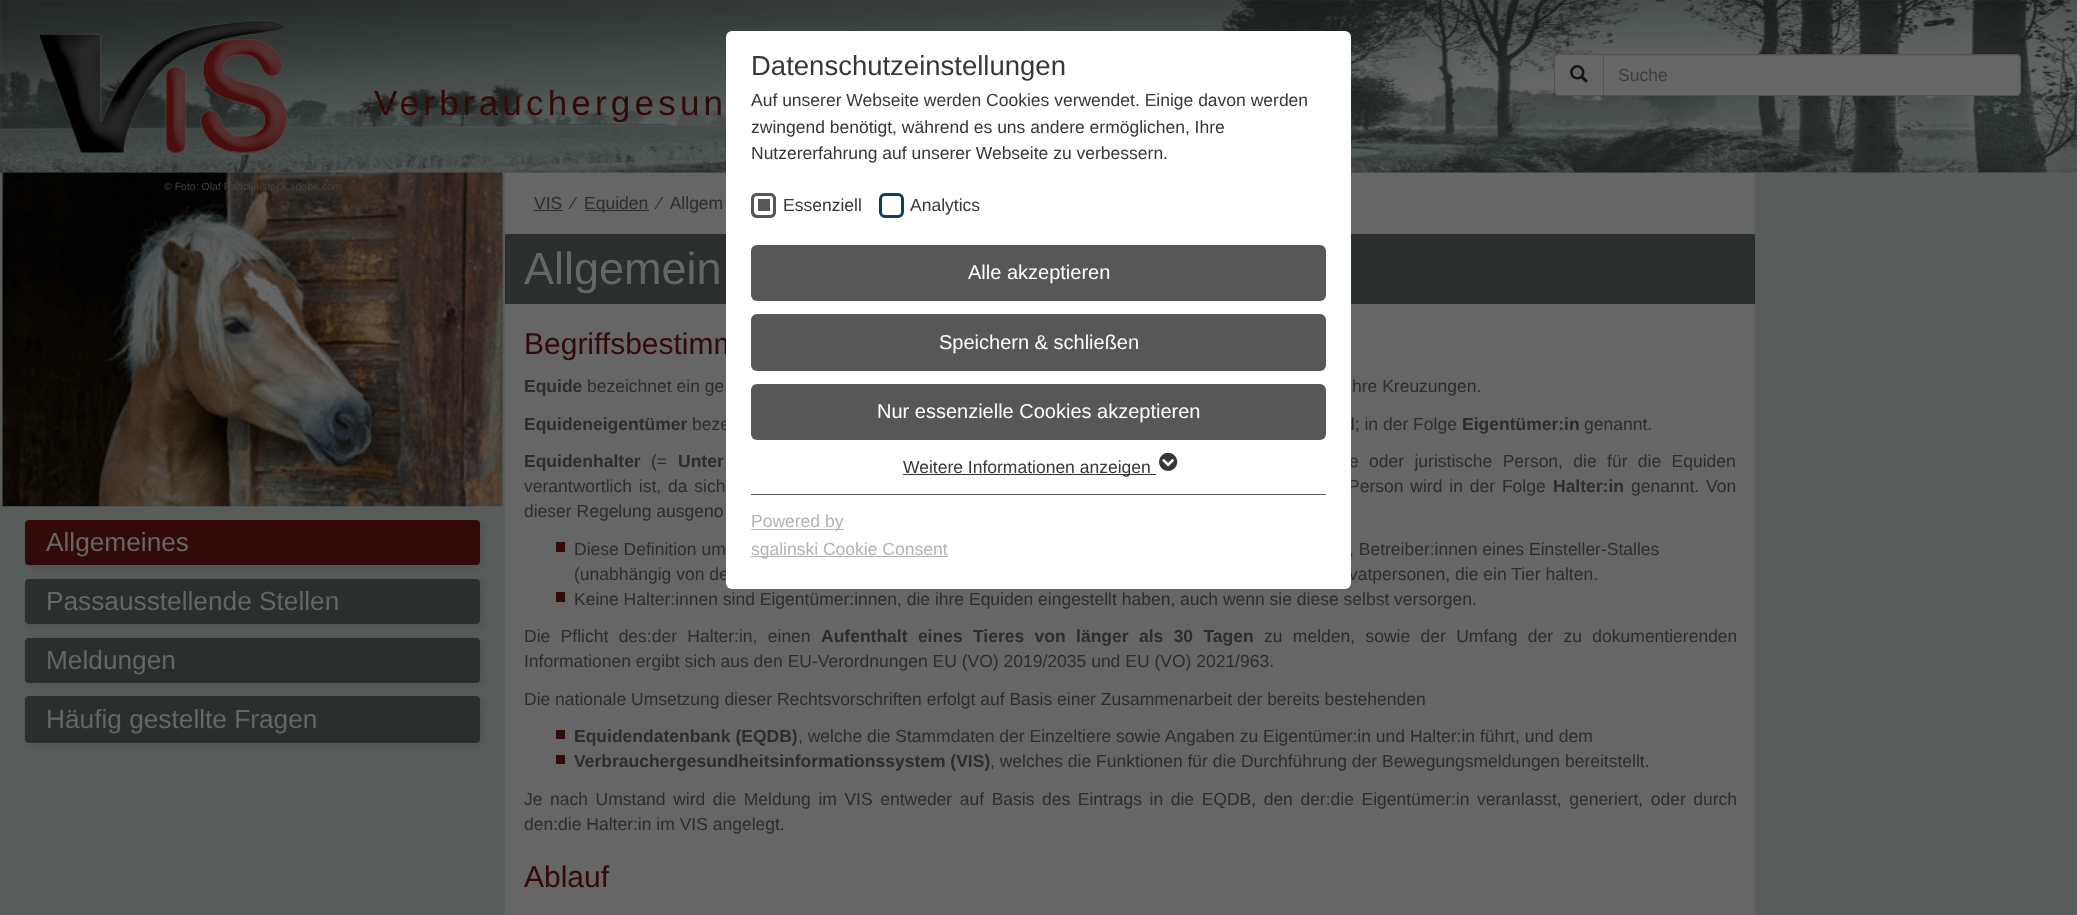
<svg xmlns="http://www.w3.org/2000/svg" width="2077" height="915">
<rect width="100%" height="100%" fill="#585c5b"/>
<image x="0" y="0" width="2077" height="173" href="media/2.png"/>
<rect x="505" y="173" width="1250" height="742" fill="#666"/>
<rect x="505" y="234" width="1250" height="70" fill="#2a2f2d"/>
<text x="524" y="354" style="font-family:Liberation Sans;font-size:30px;fill:#330a0a">Begriffsbestimm</text>
<text x="692" y="430" style="font-family:Liberation Sans;font-size:17.5px;fill:#2a2f2d">beze</text>
<text x="1345" y="430" style="font-family:Liberation Sans;font-size:17.5px;fill:#2a2f2d">d; in der Folge</text>
<text x="1349" y="467" word-spacing="5.5" style="font-family:Liberation Sans;font-size:17.5px;fill:#2a2f2d">e oder juristische Person, die für die Equiden</text>
<text x="1348" y="492" word-spacing="2" style="font-family:Liberation Sans;font-size:17.5px;fill:#2a2f2d">Person wird in der Folge</text>
<text x="1349" y="555" style="font-family:Liberation Sans;font-size:17.5px;fill:#2a2f2d">, Betreiber:innen eines Einsteller-Stalles</text>
<text x="574" y="580" style="font-family:Liberation Sans;font-size:17.5px;fill:#2a2f2d">(unabhängig von de</text>
<text x="1349" y="580" style="font-family:Liberation Sans;font-size:17.5px;fill:#2a2f2d">vatpersonen, die ein Tier halten.</text>
<rect x="726" y="31" width="625" height="558" rx="6" fill="#fff"/>
<text x="751" y="75" style="font-family:Liberation Sans;font-size:27.5px;fill:#373737">Datenschutzeinstellungen</text>
<text x="751" y="106" style="font-family:Liberation Sans;font-size:17.5px;fill:#373737">Auf unserer Webseite werden Cookies verwendet. Einige davon werden</text>
<text x="751" y="133" style="font-family:Liberation Sans;font-size:17.5px;fill:#373737">zwingend benötigt, während es uns andere ermöglichen, Ihre</text>
<text x="751" y="159" style="font-family:Liberation Sans;font-size:17.5px;fill:#373737">Nutzererfahrung auf unserer Webseite zu verbessern.</text>
<rect x="751" y="193" width="25" height="25" rx="6" fill="#575757"/>
<rect x="756" y="197" width="16" height="16" rx="2" fill="none" stroke="#fff" stroke-width="4"/>
<rect x="752.5" y="194.5" width="22" height="22" rx="4.5" fill="none" stroke="#575757" stroke-width="3"/>
<text x="783" y="211" style="font-family:Liberation Sans;font-size:17.5px;fill:#373737">Essenziell</text>
<rect x="880.5" y="194.5" width="22" height="22" rx="4.5" fill="none" stroke="#143d59" stroke-width="3"/>
<text x="910" y="211" style="font-family:Liberation Sans;font-size:17.5px;fill:#373737">Analytics</text>
<rect x="751" y="245" width="575" height="56" rx="6" fill="#575757"/>
<text x="968" y="279" style="font-family:Liberation Sans;font-size:20px;fill:#fff">Alle akzeptieren</text>
<rect x="751" y="314" width="575" height="57" rx="6" fill="#575757"/>
<text x="939" y="349" style="font-family:Liberation Sans;font-size:20px;fill:#fff">Speichern &amp; schließen</text>
<rect x="751" y="384" width="575" height="56" rx="6" fill="#575757"/>
<text x="877" y="418" style="font-family:Liberation Sans;font-size:20px;fill:#fff">Nur essenzielle Cookies akzeptieren</text>
<rect x="903" y="474" width="253" height="1" fill="#373737"/>
<text x="903" y="473" style="font-family:Liberation Sans;font-size:17.5px;fill:#373737">Weitere Informationen anzeigen</text>
<image x="1159" y="453" width="19" height="18" href="media/1.png"/>
<rect x="751" y="494" width="575" height="1" fill="#575757"/>
<rect x="751" y="529" width="93" height="1" fill="#b4b4b4"/>
<text x="751" y="527" style="font-family:Liberation Sans;font-size:17.5px;fill:#b3b3b3">Powered by</text>
<rect x="751" y="556" width="197" height="1" fill="#b4b4b4"/>
<text x="751" y="555" style="font-family:Liberation Sans;font-size:17.5px;fill:#b3b3b3">sgalinski Cookie Consent</text>
<image x="37" y="20" width="251" height="134" href="media/3.png"/>
<path d="M1559 54.5h44.5v41h-44.5c-2.5 0-4.5-2-4.5-4.5v-32c0-2.5 2-4.5 4.5-4.5z" fill="#666" stroke="#525252"/>
<image x="1570" y="65" width="18" height="18" href="media/4.png"/>
<path d="M1603 54h413c3 0 5 2 5 5v32c0 3-2 5-5 5h-413z" fill="#666"/>
<path d="M1604 56h412c2 0 4 2 4 4v-1c0-2-2-4-4-4h-412z" fill="#5e5e5e"/>
<path d="M1603.5 54.5h412.5c2.5 0 4.5 2 4.5 4.5v32c0 2.5-2 4.5-4.5 4.5h-412.5z" fill="none" stroke="#525252"/>
<text x="1618" y="81" style="font-family:Liberation Sans;font-size:17.5px;fill:#3d3d3d">Suche</text>
<text x="374" y="115" style="font-family:Liberation Sans;font-size:35px;letter-spacing:4.2px;fill:#330a0a">Verbrauchergesun</text>
<image x="2" y="172" width="501" height="335" href="media/5.png"/>
<text x="164" y="190" style="font-family:Liberation Sans;font-size:10.5px;fill:#444">© Foto: Olaf Radcke/stock.adobe.com</text>
<rect x="28" y="523" width="455" height="45" rx="4" fill="#525252" filter="blur(3px)"/>
<rect x="25" y="520" width="455" height="45" rx="4" fill="#330a0a"/>
<text x="46" y="551" style="font-family:Liberation Sans;font-size:26.25px;fill:#666">Allgemeines</text>
<rect x="28" y="581" width="455" height="45" rx="4" fill="#525252" filter="blur(3px)"/>
<rect x="25" y="579" width="455" height="45" rx="4" fill="#2a2f2d"/>
<text x="46" y="610" style="font-family:Liberation Sans;font-size:26.25px;fill:#666">Passausstellende Stellen</text>
<rect x="28" y="640" width="455" height="45" rx="4" fill="#525252" filter="blur(3px)"/>
<rect x="25" y="638" width="455" height="45" rx="4" fill="#2a2f2d"/>
<text x="46" y="669" style="font-family:Liberation Sans;font-size:26.25px;fill:#666">Meldungen</text>
<rect x="28" y="699" width="455" height="46" rx="4" fill="#525252" filter="blur(3px)"/>
<rect x="25" y="696" width="455" height="47" rx="4" fill="#2a2f2d"/>
<text x="46" y="728" style="font-family:Liberation Sans;font-size:26.25px;fill:#666">Häufig gestellte Fragen</text>
<text x="534" y="209" style="font-family:Liberation Sans;font-size:17.5px;fill:#2a2f2d">VIS</text>
<rect x="534" y="210" width="29" height="1" fill="#2a2f2d"/>
<text x="572" y="209" style="font-family:Liberation Sans;font-size:17.5px;fill:#2a2f2d">⁄</text>
<rect x="585" y="210" width="64" height="1" fill="#2a2f2d"/>
<text x="584" y="209" style="font-family:Liberation Sans;font-size:17.5px;fill:#2a2f2d">Equiden</text>
<text x="658" y="209" style="font-family:Liberation Sans;font-size:17.5px;fill:#2a2f2d" xml:space="preserve">⁄  Allgem</text>
<text x="524" y="284" style="font-family:Liberation Sans;font-size:45px;fill:#666">Allgemein</text>
<text x="524" y="392" style="font-family:Liberation Sans;font-size:17.5px;font-weight:bold;fill:#2a2f2d">Equide</text>
<text x="587" y="392" style="font-family:Liberation Sans;font-size:17.5px;fill:#2a2f2d">bezeichnet ein ge</text>
<text x="1352" y="392" style="font-family:Liberation Sans;font-size:17.5px;fill:#2a2f2d">hre Kreuzungen.</text>
<text x="524" y="430" style="font-family:Liberation Sans;font-size:17.5px;font-weight:bold;fill:#2a2f2d">Equideneigentümer</text>
<text x="1462" y="430" style="font-family:Liberation Sans;font-size:17.5px;font-weight:bold;fill:#2a2f2d">Eigentümer:in</text>
<text x="1584" y="430" style="font-family:Liberation Sans;font-size:17.5px;fill:#2a2f2d">genannt.</text>
<text x="524" y="467" style="font-family:Liberation Sans;font-size:17.5px;font-weight:bold;fill:#2a2f2d">Equidenhalter</text>
<text x="651" y="467" style="font-family:Liberation Sans;font-size:17.5px;fill:#2a2f2d">(=</text>
<text x="678" y="467" style="font-family:Liberation Sans;font-size:17.5px;font-weight:bold;fill:#2a2f2d">Unter</text>
<text x="524" y="492" word-spacing="2" style="font-family:Liberation Sans;font-size:17.5px;fill:#2a2f2d">verantwortlich ist, da sich</text>
<text x="1553" y="492" style="font-family:Liberation Sans;font-size:17.5px;font-weight:bold;fill:#2a2f2d">Halter:in</text>
<text x="1631" y="492" word-spacing="2" style="font-family:Liberation Sans;font-size:17.5px;fill:#2a2f2d">genannt. Von</text>
<text x="524" y="517" style="font-family:Liberation Sans;font-size:17.5px;fill:#2a2f2d">dieser Regelung ausgeno</text>
<rect x="556" y="542" width="9" height="10" fill="#330a0a"/>
<text x="574" y="555" style="font-family:Liberation Sans;font-size:17.5px;fill:#2a2f2d">Diese Definition um</text>
<rect x="556" y="592" width="9" height="10" fill="#330a0a"/>
<text x="574" y="605" style="font-family:Liberation Sans;font-size:17.5px;fill:#2a2f2d">Keine Halter:innen sind Eigentümer:innen, die ihre Equiden eingestellt haben, auch wenn sie diese selbst versorgen.</text>
<text x="524" y="642" word-spacing="5.5" style="font-family:Liberation Sans;font-size:17.5px;fill:#2a2f2d">Die Pflicht des:der Halter:in, einen</text>
<text x="821" y="642" word-spacing="5.5" style="font-family:Liberation Sans;font-size:17.5px;font-weight:bold;fill:#2a2f2d">Aufenthalt eines Tieres von länger als 30 Tagen</text>
<text x="1264" y="642" word-spacing="5.5" style="font-family:Liberation Sans;font-size:17.5px;fill:#2a2f2d">zu melden, sowie der Umfang der zu dokumentierenden</text>
<text x="524" y="667" style="font-family:Liberation Sans;font-size:17.5px;fill:#2a2f2d">Informationen ergibt sich aus den EU-Verordnungen EU (VO) 2019/2035 und EU (VO) 2021/963.</text>
<text x="524" y="705" style="font-family:Liberation Sans;font-size:17.5px;fill:#2a2f2d">Die nationale Umsetzung dieser Rechtsvorschriften erfolgt auf Basis einer Zusammenarbeit der bereits bestehenden</text>
<rect x="556" y="730" width="9" height="9" fill="#330a0a"/>
<text x="574" y="742" style="font-family:Liberation Sans;font-size:17.5px;font-weight:bold;fill:#2a2f2d">Equidendatenbank (EQDB)</text>
<text x="798" y="742" style="font-family:Liberation Sans;font-size:17.5px;fill:#2a2f2d">, welche die Stammdaten der Einzeltiere sowie Angaben zu Eigentümer:in und Halter:in führt, und dem</text>
<rect x="556" y="755" width="9" height="9" fill="#330a0a"/>
<text x="574" y="767" style="font-family:Liberation Sans;font-size:17.5px;font-weight:bold;fill:#2a2f2d">Verbrauchergesundheitsinformationssystem (VIS)</text>
<text x="990" y="767" style="font-family:Liberation Sans;font-size:17.5px;fill:#2a2f2d">, welches die Funktionen für die Durchführung der Bewegungsmeldungen bereitstellt.</text>
<text x="524" y="805" word-spacing="2.7" style="font-family:Liberation Sans;font-size:17.5px;fill:#2a2f2d">Je nach Umstand wird die Meldung im VIS entweder auf Basis des Eintrags in die EQDB, den der:die Eigentümer:in veranlasst, generiert, oder durch</text>
<text x="524" y="830" style="font-family:Liberation Sans;font-size:17.5px;fill:#2a2f2d">den:die Halter:in im VIS angelegt.</text>
<text x="524" y="887" style="font-family:Liberation Sans;font-size:30px;fill:#330a0a">Ablauf</text>
</svg>
